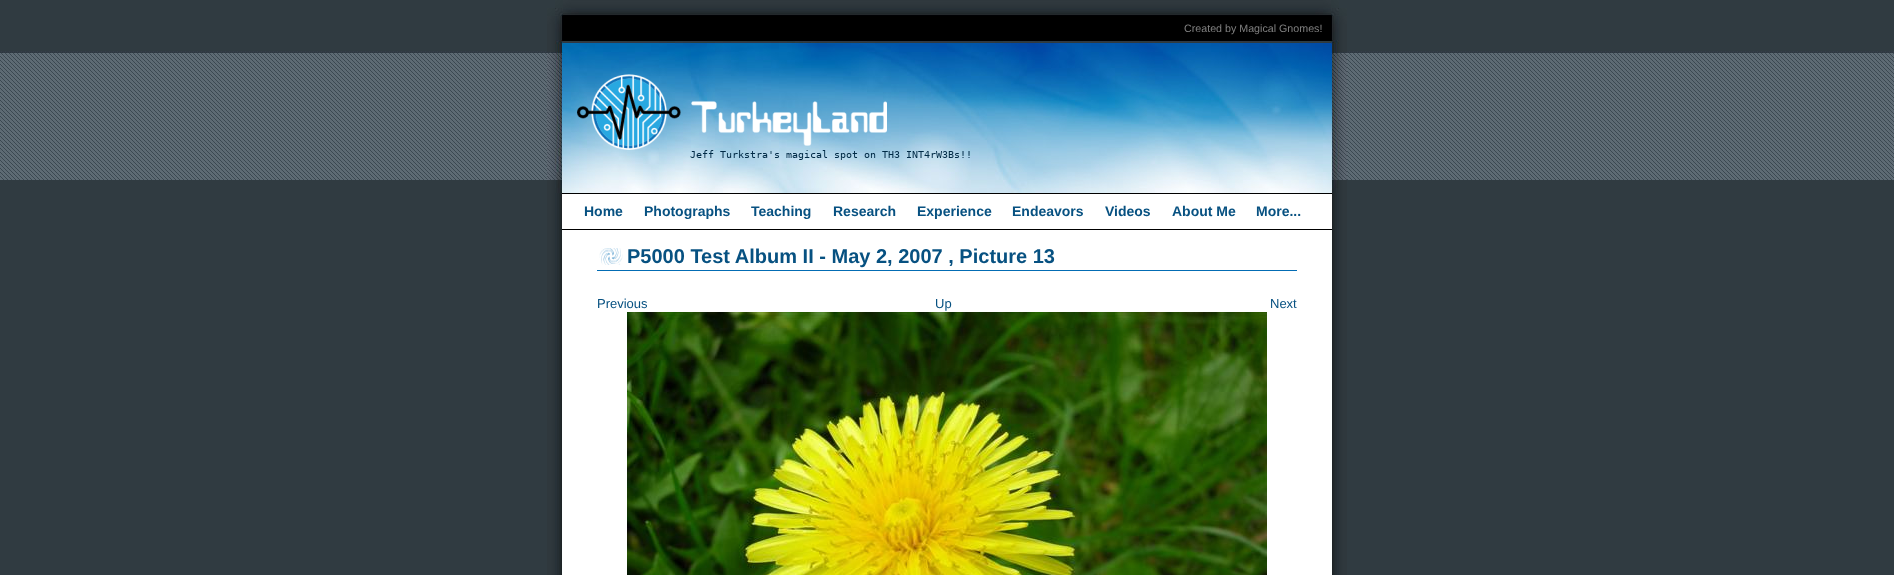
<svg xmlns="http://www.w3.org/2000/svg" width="1894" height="575">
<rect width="100%" height="100%" fill="#303b41"/>
<image x="0" y="51" width="1894" height="129" href="media/1.png"/>
<image x="547" y="193" width="800" height="382" href="media/2.png"/>
<image x="547" y="0" width="800" height="44" href="media/3.png"/>
<text x="1184" y="32" style="font-family:Liberation Sans;font-size:10.7px;fill:#808080">Created by Magical Gnomes!</text>
<image x="547" y="44" width="800" height="149" href="media/4.png"/>
<image x="577" y="74" width="393" height="86" href="media/5.png"/>
<rect x="562" y="194" width="770" height="35" fill="#fff"/>
<rect x="562" y="193" width="770" height="1" fill="#000"/>
<rect x="562" y="229" width="770" height="1" fill="#000"/>
<text x="584" y="216" style="font-family:Liberation Sans;font-size:14px;font-weight:bold;fill:#075181">Home</text>
<text x="644" y="216" style="font-family:Liberation Sans;font-size:14px;font-weight:bold;fill:#075181">Photographs</text>
<text x="751" y="216" style="font-family:Liberation Sans;font-size:14px;font-weight:bold;fill:#075181">Teaching</text>
<text x="833" y="216" style="font-family:Liberation Sans;font-size:14px;font-weight:bold;fill:#075181">Research</text>
<text x="917" y="216" style="font-family:Liberation Sans;font-size:14px;font-weight:bold;fill:#075181">Experience</text>
<text x="1012" y="216" style="font-family:Liberation Sans;font-size:14px;font-weight:bold;fill:#075181">Endeavors</text>
<text x="1105" y="216" style="font-family:Liberation Sans;font-size:14px;font-weight:bold;fill:#075181">Videos</text>
<text x="1172" y="216" style="font-family:Liberation Sans;font-size:14px;font-weight:bold;fill:#075181">About Me</text>
<text x="1256" y="216" style="font-family:Liberation Sans;font-size:14px;font-weight:bold;fill:#075181">More...</text>
<image x="599" y="248" width="24" height="17" href="media/6.png"/>
<text x="627" y="263" style="font-family:Liberation Sans;font-size:20px;font-weight:bold;fill:#075181">P5000 Test Album II - May 2, 2007 , Picture 13</text>
<rect x="597" y="270" width="700" height="1" fill="#036cb4"/>
<text x="597" y="308" style="font-family:Liberation Sans;font-size:13px;fill:#075181">Previous</text>
<text x="935" y="308" style="font-family:Liberation Sans;font-size:13px;fill:#075181">Up</text>
<text x="1270" y="308" style="font-family:Liberation Sans;font-size:13px;fill:#075181">Next</text>
<image x="627" y="312" width="640" height="263" href="media/7.png"/>
</svg>
